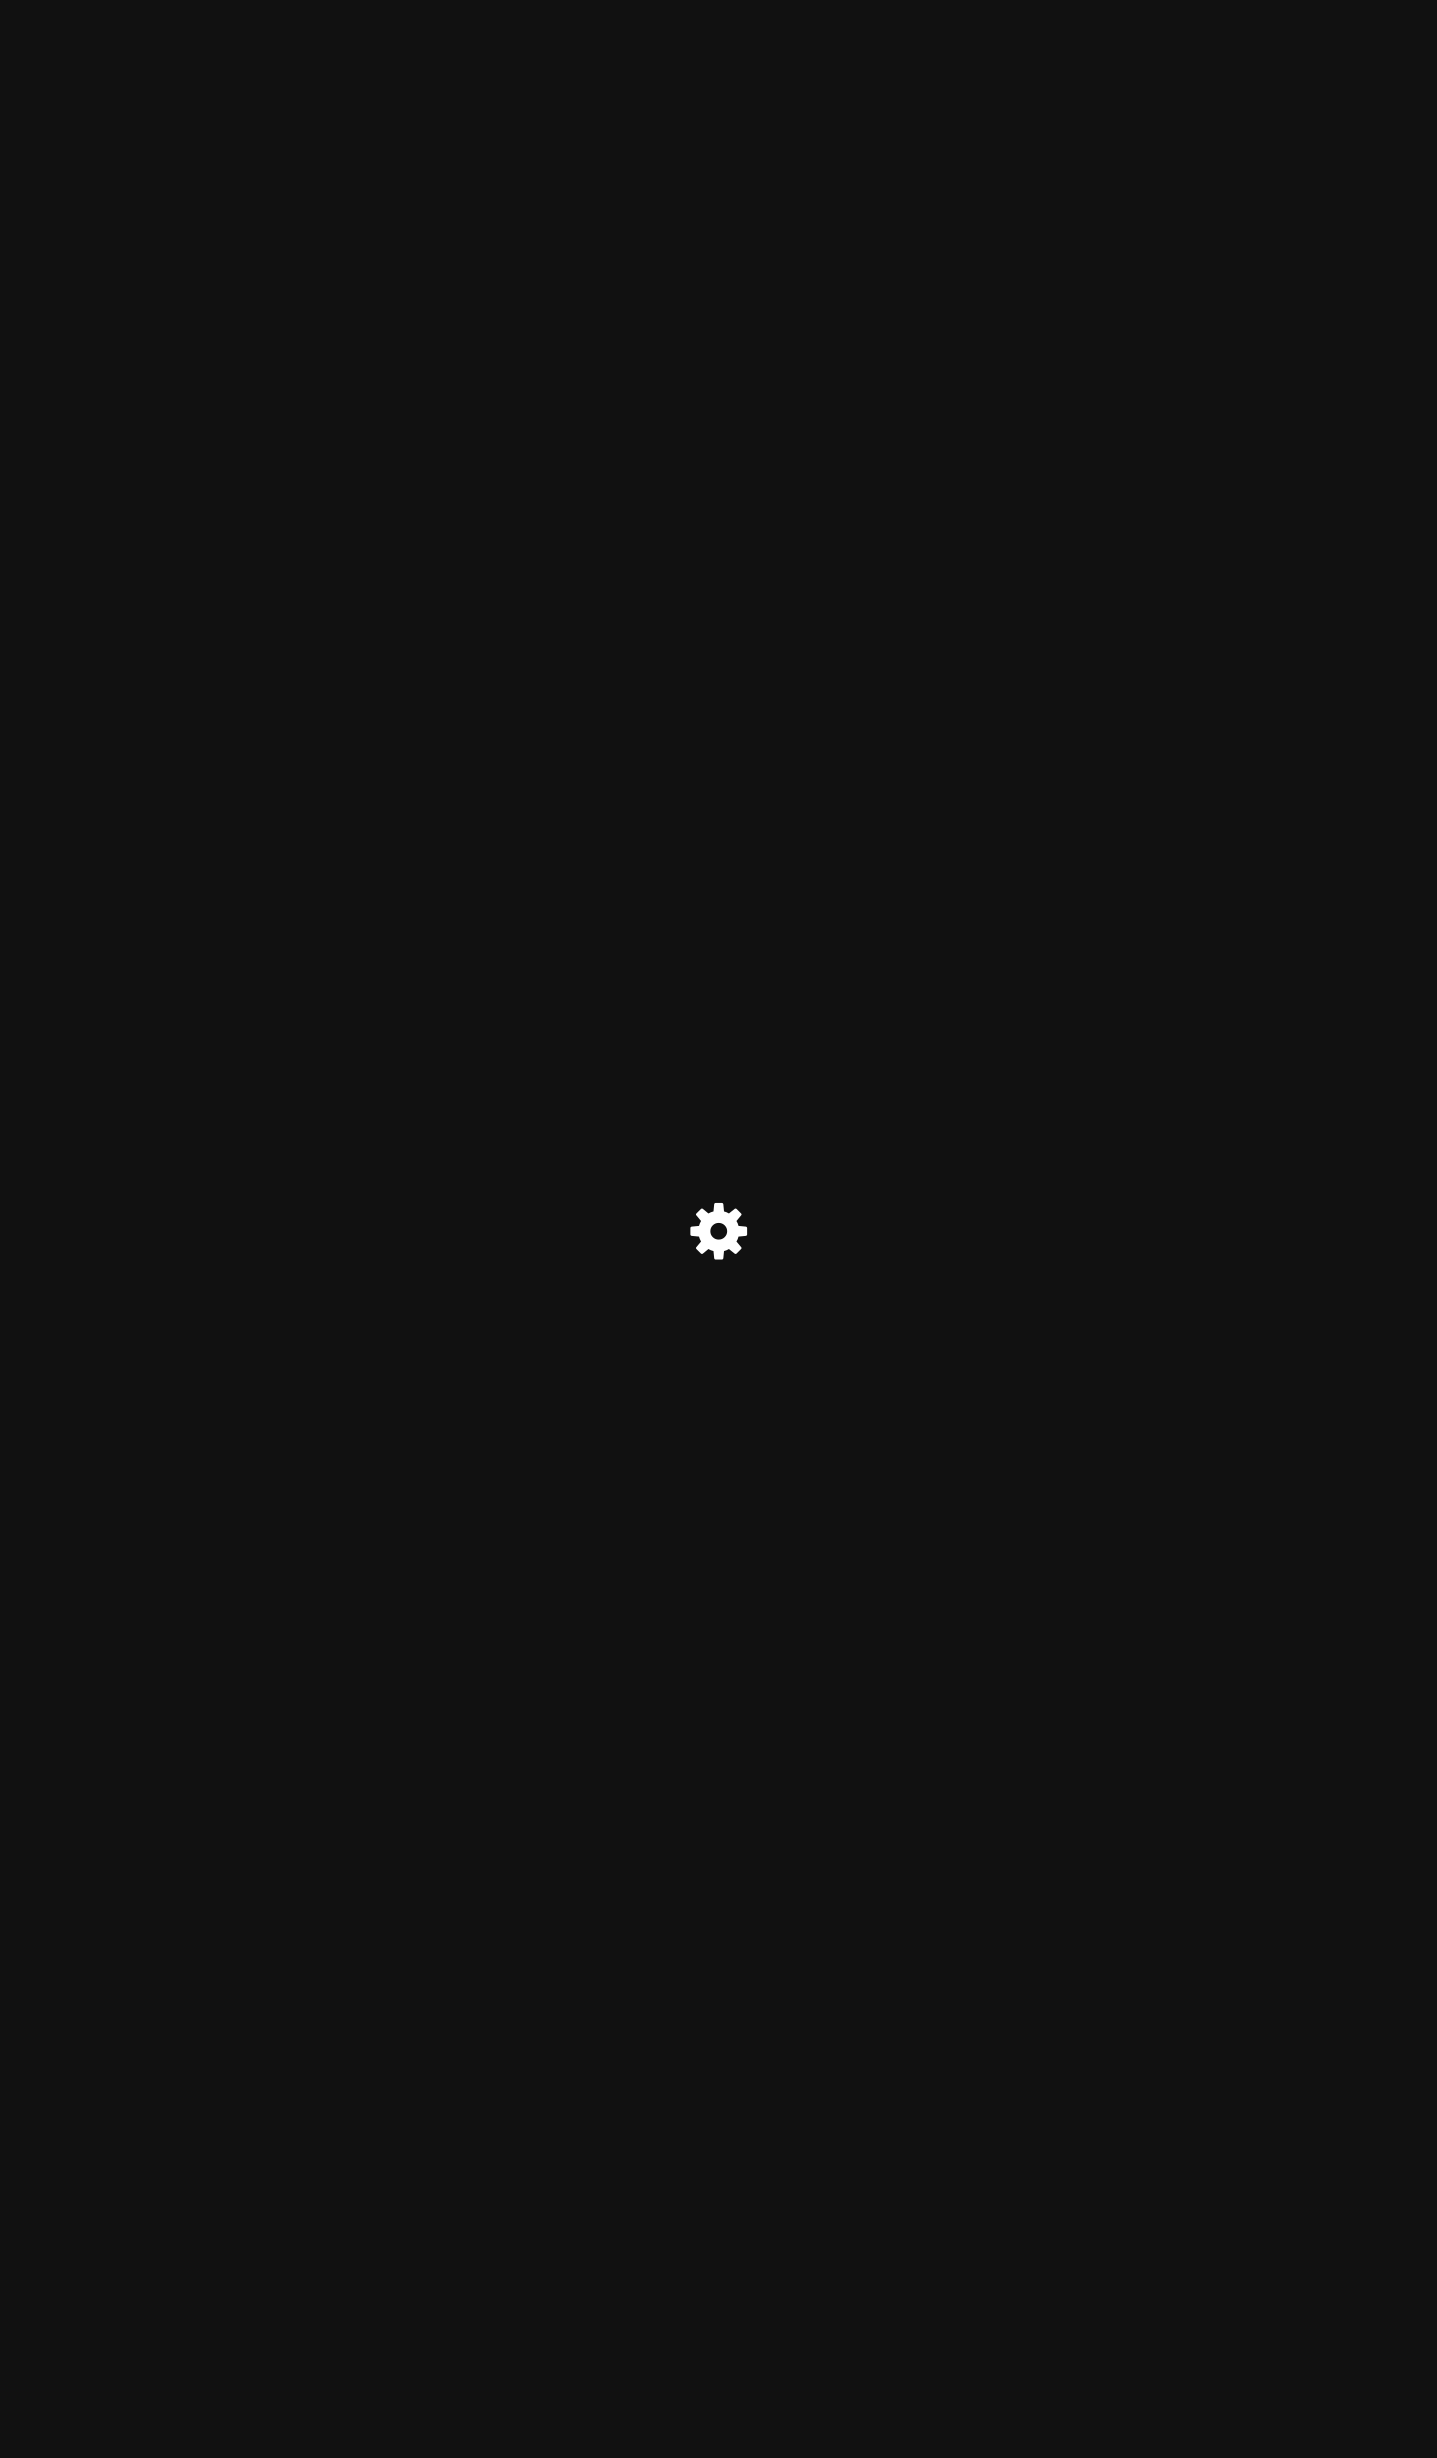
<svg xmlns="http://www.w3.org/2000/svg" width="1437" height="2458">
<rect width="100%" height="100%" fill="#111"/>
<image x="690" y="1202" width="58" height="58" href="media/1.png"/>
</svg>
